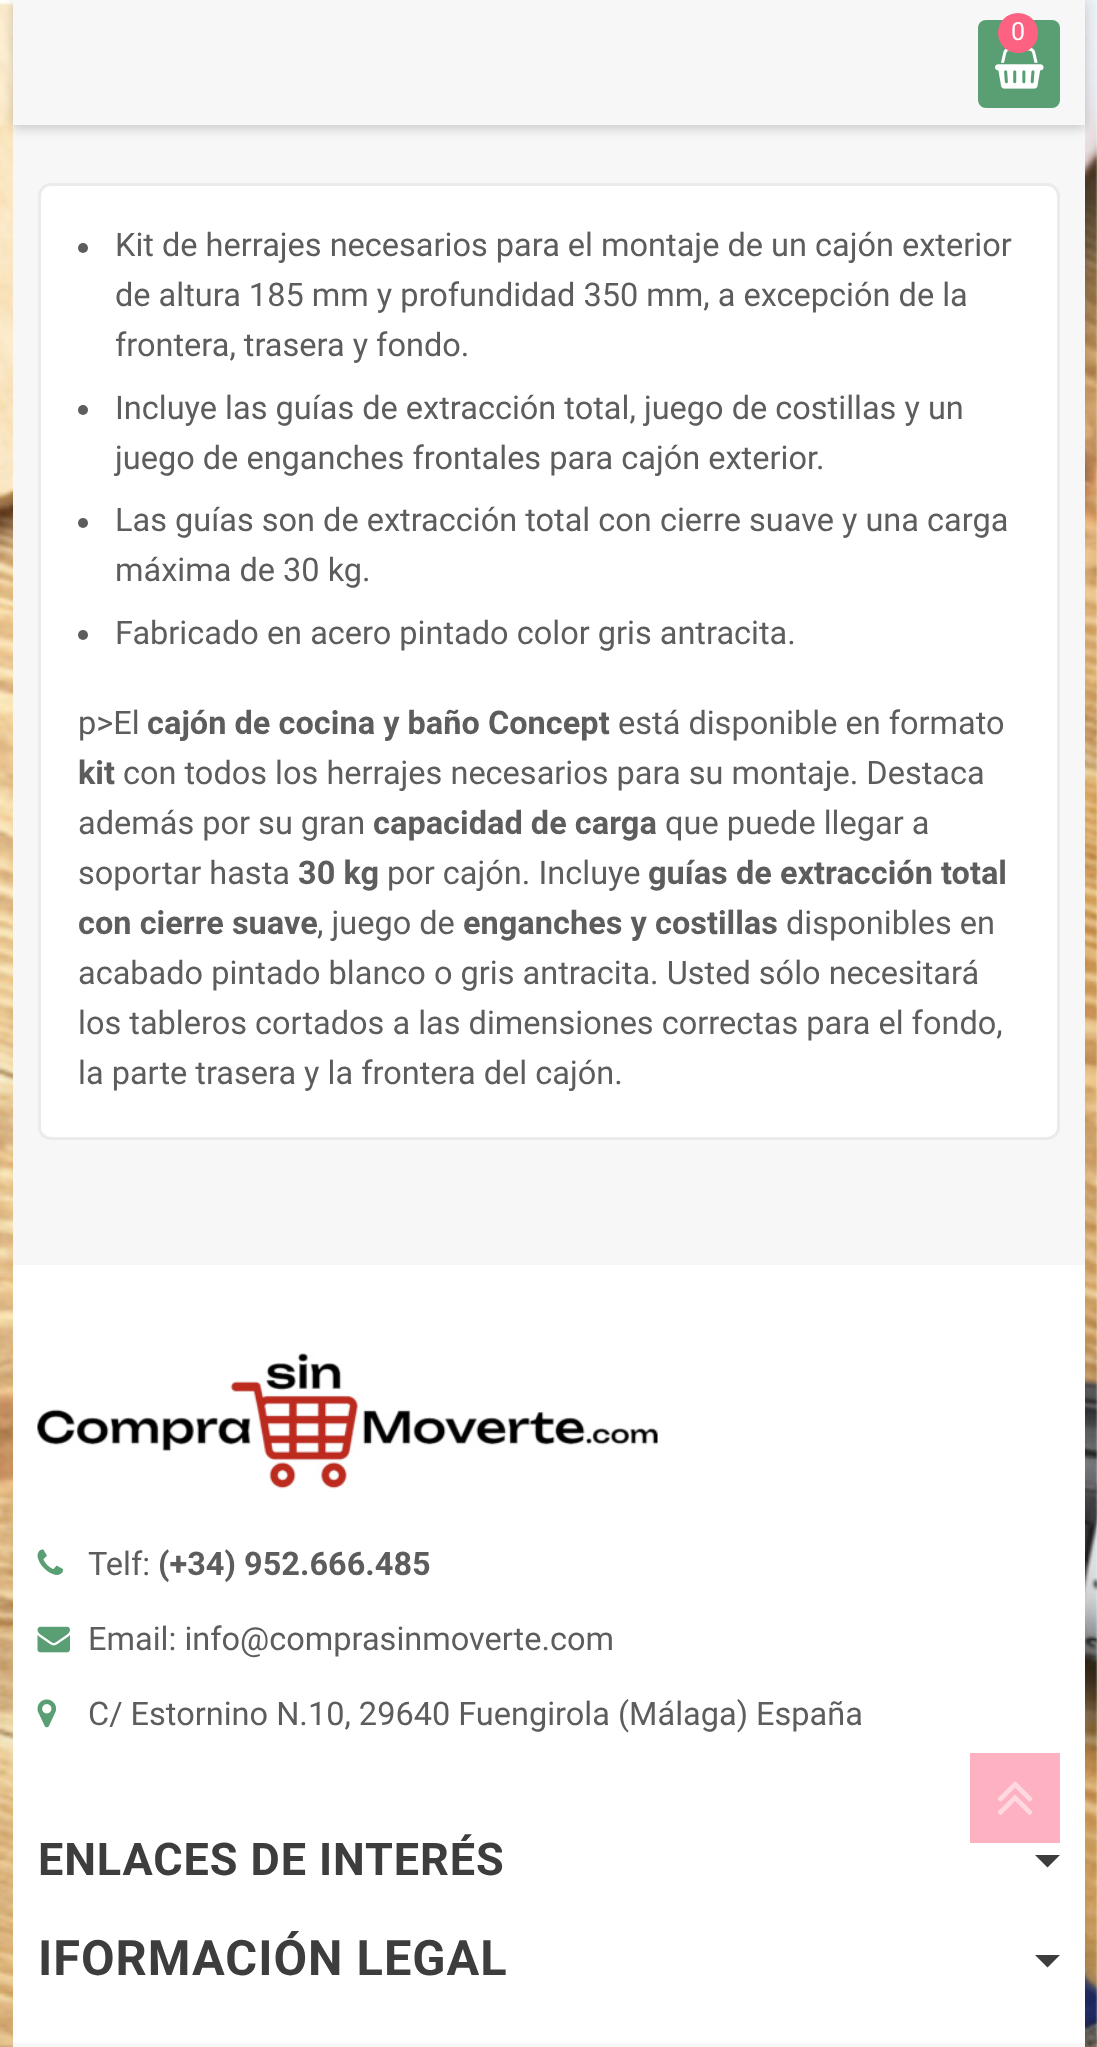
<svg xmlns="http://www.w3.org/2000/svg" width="1097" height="2047">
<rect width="100%" height="100%" fill="#fff"/>
<image x="0" y="0" width="1097" height="2047" href="media/1.png"/>
<rect x="13" y="125" width="1072" height="1140" fill="#f7f7f7"/>
<rect x="13" y="3" width="1072" height="125" fill="#00000033" filter="blur(6px)"/>
<rect x="13" width="1072" height="125" fill="#f7f7f7"/>
<rect x="978" y="20" width="82" height="88" rx="8" fill="#5a9e74"/>
<image x="995" y="47" width="49" height="42" href="media/2.png"/>
<circle cx="1018" cy="33" r="20" fill="#fd6282"/>
<text x="1011" y="40" style="font-family:Roboto;font-size:25px;fill:#fff">0</text>
<rect x="39.5" y="184.5" width="1019" height="954" rx="11.5" fill="#fff" stroke="#ebebeb" stroke-width="3"/>
<circle cx="83" cy="248" r="5" fill="#5d5d5d"/>
<text x="115" y="256" style="font-family:Roboto;font-size:32.5px;fill:#5d5d5d">Kit de herrajes necesarios para el montaje de un cajón exterior</text>
<text x="115" y="306" style="font-family:Roboto;font-size:32.5px;fill:#5d5d5d">de altura 185 mm y profundidad 350 mm, a excepción de la</text>
<text x="115" y="356" style="font-family:Roboto;font-size:32.5px;fill:#5d5d5d">frontera, trasera y fondo.</text>
<circle cx="83" cy="410" r="5" fill="#5d5d5d"/>
<text x="115" y="419" style="font-family:Roboto;font-size:32.5px;fill:#5d5d5d">Incluye las guías de extracción total, juego de costillas y un</text>
<text x="115" y="469" style="font-family:Roboto;font-size:32.5px;fill:#5d5d5d">juego de enganches frontales para cajón exterior.</text>
<circle cx="83" cy="523" r="5" fill="#5d5d5d"/>
<text x="115" y="531" style="font-family:Roboto;font-size:32.5px;fill:#5d5d5d">Las guías son de extracción total con cierre suave y una carga</text>
<text x="115" y="581" style="font-family:Roboto;font-size:32.5px;fill:#5d5d5d">máxima de 30 kg.</text>
<circle cx="83" cy="635" r="5" fill="#5d5d5d"/>
<text x="115" y="644" style="font-family:Roboto;font-size:32.5px;fill:#5d5d5d">Fabricado en acero pintado color gris antracita.</text>
<text x="78" y="734" style="font-family:Roboto;font-size:32.5px;fill:#5d5d5d">p&gt;El</text>
<text x="147" y="734" style="font-family:Roboto;font-size:32.5px;font-weight:bold;fill:#5d5d5d">cajón de cocina y baño Concept</text>
<text x="618" y="734" style="font-family:Roboto;font-size:32.5px;fill:#5d5d5d">está disponible en formato</text>
<text x="78" y="784" style="font-family:Roboto;font-size:32.5px;font-weight:bold;fill:#5d5d5d">kit</text>
<text x="123" y="784" style="font-family:Roboto;font-size:32.5px;fill:#5d5d5d">con todos los herrajes necesarios para su montaje. Destaca</text>
<text x="78" y="834" style="font-family:Roboto;font-size:32.5px;fill:#5d5d5d">además por su gran</text>
<text x="373" y="834" style="font-family:Roboto;font-size:32.5px;font-weight:bold;fill:#5d5d5d">capacidad de carga</text>
<text x="665" y="834" style="font-family:Roboto;font-size:32.5px;fill:#5d5d5d">que puede llegar a</text>
<text x="78" y="884" style="font-family:Roboto;font-size:32.5px;fill:#5d5d5d">soportar hasta</text>
<text x="298" y="884" style="font-family:Roboto;font-size:32.5px;font-weight:bold;fill:#5d5d5d">30 kg</text>
<text x="387" y="884" style="font-family:Roboto;font-size:32.5px;fill:#5d5d5d">por cajón. Incluye</text>
<text x="648" y="884" style="font-family:Roboto;font-size:32.5px;font-weight:bold;fill:#5d5d5d">guías de extracción total</text>
<text x="78" y="934" style="font-family:Roboto;font-size:32.5px;font-weight:bold;fill:#5d5d5d">con cierre suave</text>
<text x="317" y="934" style="font-family:Roboto;font-size:32.5px;fill:#5d5d5d">, juego de</text>
<text x="463" y="934" style="font-family:Roboto;font-size:32.5px;font-weight:bold;fill:#5d5d5d">enganches y costillas</text>
<text x="786" y="934" style="font-family:Roboto;font-size:32.5px;fill:#5d5d5d">disponibles en</text>
<text x="78" y="984" style="font-family:Roboto;font-size:32.5px;fill:#5d5d5d">acabado pintado blanco o gris antracita. Usted sólo necesitará</text>
<text x="78" y="1034" style="font-family:Roboto;font-size:32.5px;fill:#5d5d5d">los tableros cortados a las dimensiones correctas para el fondo,</text>
<text x="78" y="1084" style="font-family:Roboto;font-size:32.5px;fill:#5d5d5d">la parte trasera y la frontera del cajón.</text>
<rect x="13" y="1265" width="1072" height="778" fill="#fff"/>
<image x="37" y="1353" width="621" height="136" href="media/3.png"/>
<image x="37" y="1549" width="26" height="26" href="media/4.png"/>
<text x="88" y="1575" style="font-family:Roboto;font-size:32.5px;fill:#5d5d5d">Telf:</text>
<text x="158" y="1575" style="font-family:Roboto;font-size:32.5px;font-weight:bold;fill:#5d5d5d">(+34) 952.666.485</text>
<image x="37" y="1626" width="33" height="27" href="media/5.png"/>
<text x="88" y="1650" style="font-family:Roboto;font-size:32.5px;fill:#5d5d5d">Email: info@comprasinmoverte.com</text>
<image x="37" y="1699" width="20" height="29" href="media/6.png"/>
<text x="88" y="1725" style="font-family:Roboto;font-size:32.5px;fill:#5d5d5d">C/ Estornino N.10, 29640 Fuengirola (Málaga) España</text>
<text x="38" y="1875" style="font-family:'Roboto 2';font-size:45px;font-weight:bold;letter-spacing:0.9px;fill:#3d3d3d">ENLACES DE INTERÉS</text>
<path d="M1035 1855h25l-12.5 12.5z" fill="#3d3d3d"/>
<text x="38" y="1975" style="font-family:'Roboto 2';font-size:48.75px;font-weight:bold;letter-spacing:1px;fill:#3d3d3d">IFORMACIÓN LEGAL</text>
<path d="M1035 1955h25l-12.5 12.5z" fill="#3d3d3d"/>
<rect x="13" y="2043" width="1072" height="4" fill="#f7f7f7"/>
<rect x="970" y="1753" width="90" height="90" fill="#feb1c1"/>
<image x="997" y="1781" width="36" height="34" href="media/7.png"/>
</svg>
